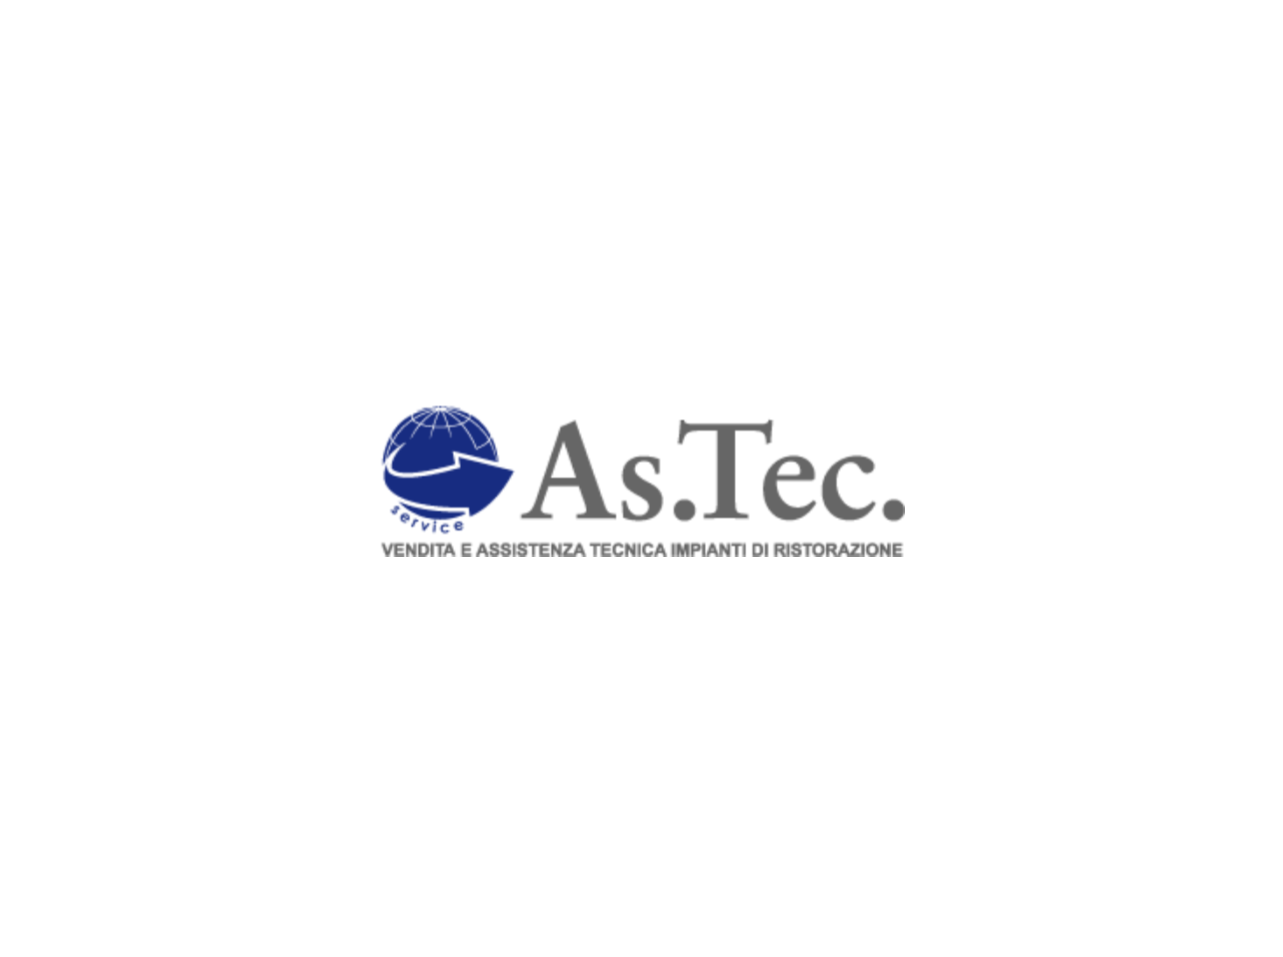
<svg xmlns="http://www.w3.org/2000/svg" width="1283" height="957">
<rect width="100%" height="100%" fill="#fff"/>
<image x="380" y="405" width="525" height="152" href="media/1.png"/>
</svg>
